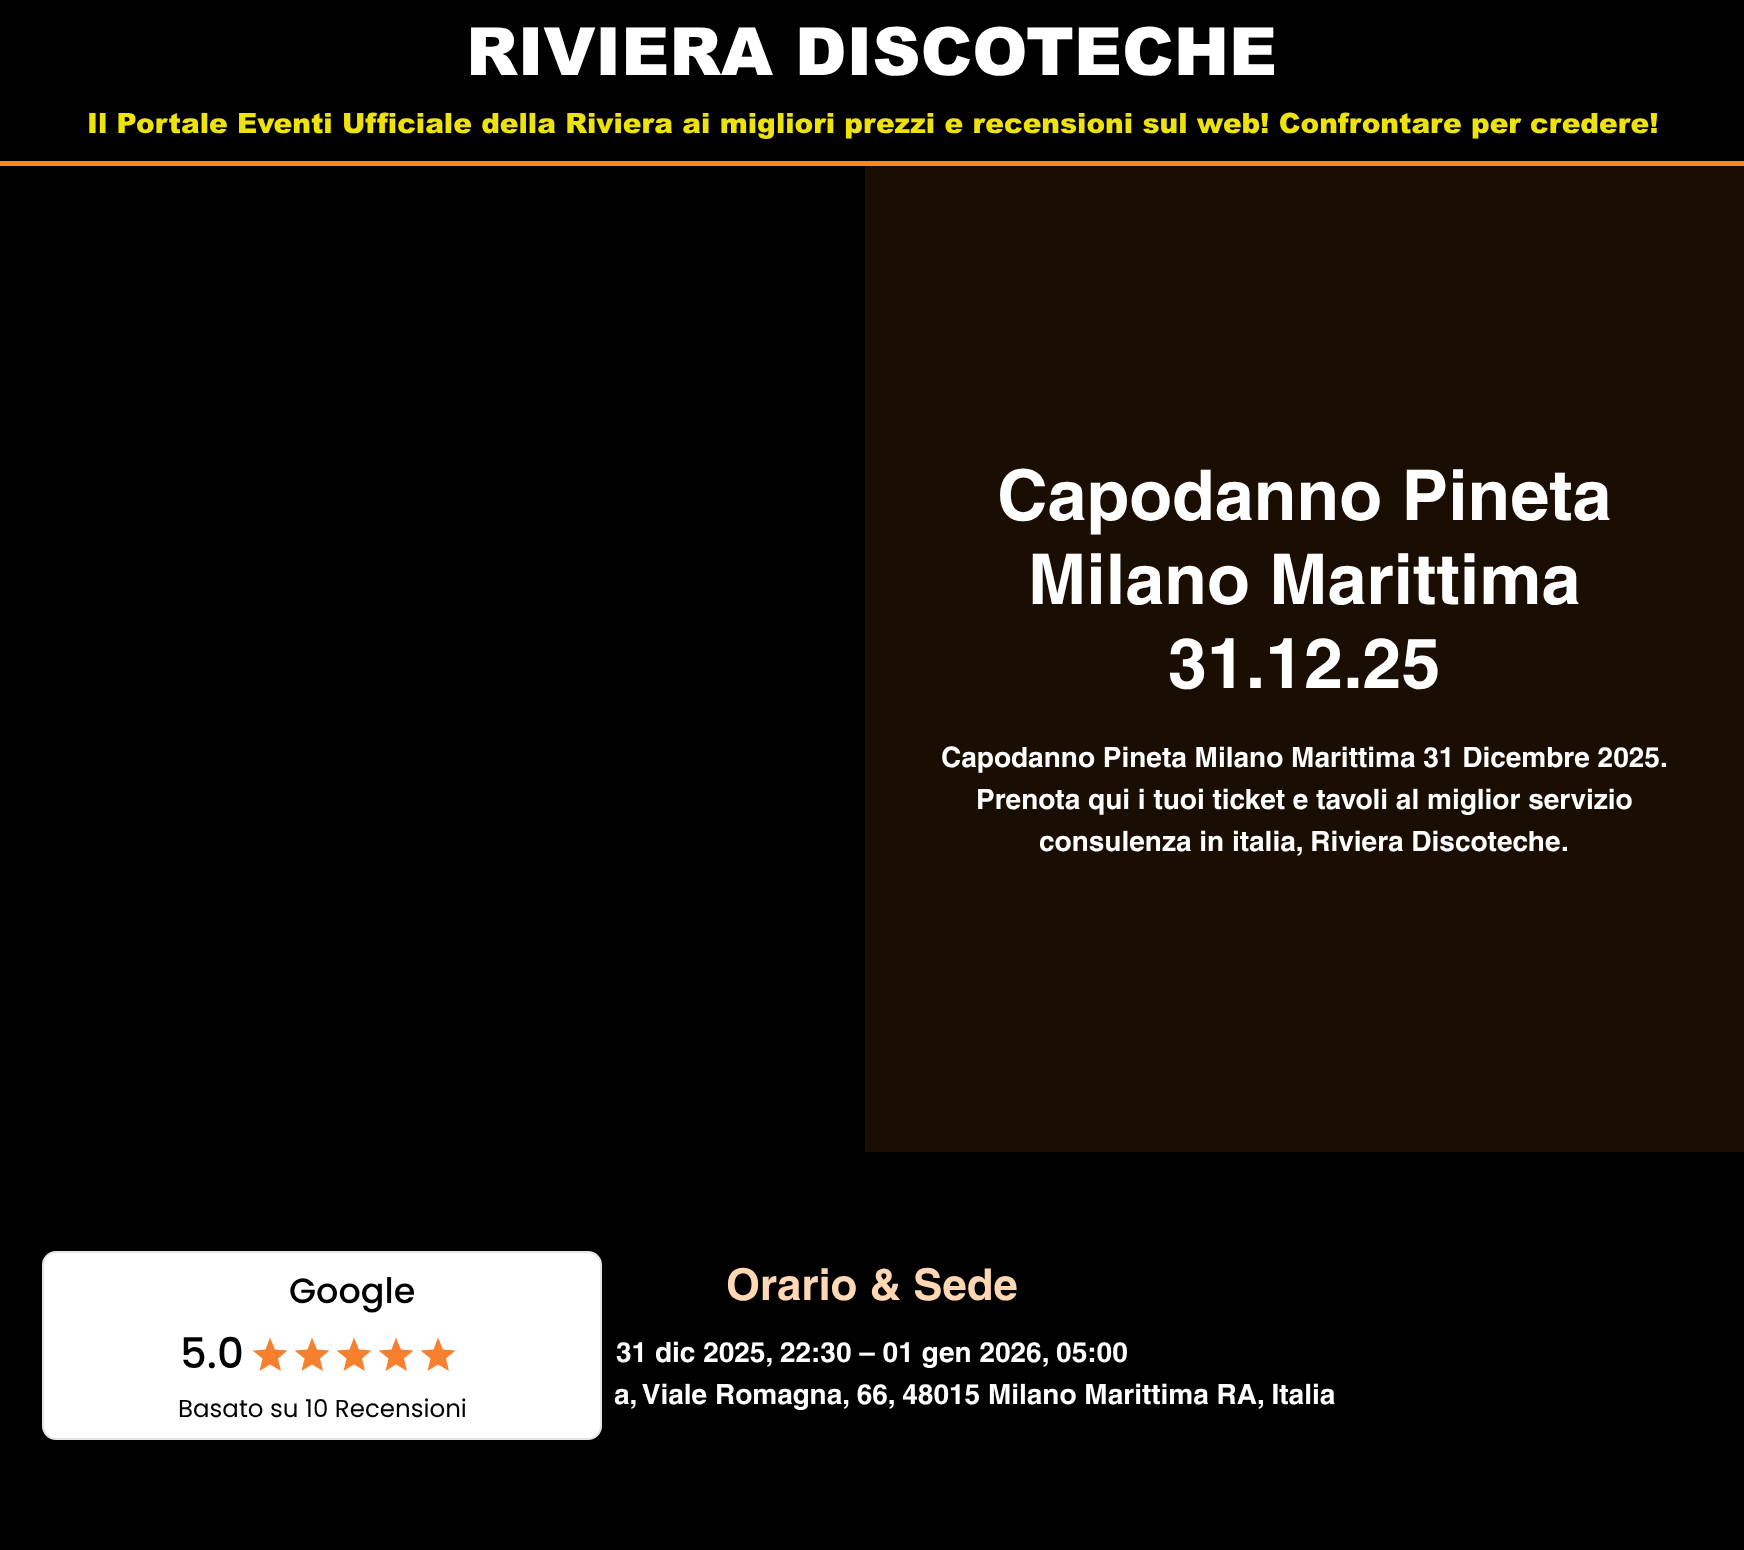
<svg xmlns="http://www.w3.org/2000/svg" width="1744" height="1550">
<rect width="100%" height="100%" fill="#000"/>
<text x="466" y="75" style="font-family:arial;font-size:66.5px;font-weight:900;fill:#fff">RIVIERA DISCOTECHE</text>
<text x="87" y="133" style="font-family:arial;font-size:28px;font-weight:900;fill:#ede20c">Il Portale Eventi Ufficiale della Riviera ai migliori prezzi e recensioni sul web! Confrontare per credere!</text>
<rect y="161" width="1744" height="5" fill="#ff8819"/>
<rect x="865" y="166" width="879" height="986" fill="#1a0e03"/>
<text x="997" y="520" style="font-family:helvetica;font-size:70px;font-weight:bold;fill:#fff">Capodanno Pineta</text>
<text x="1028" y="604" style="font-family:helvetica;font-size:70px;font-weight:bold;fill:#fff">Milano Marittima</text>
<text x="1168" y="688" style="font-family:helvetica;font-size:70px;font-weight:bold;fill:#fff">31.12.25</text>
<text x="941" y="767" style="font-family:helvetica;font-size:28px;font-weight:bold;fill:#fff">Capodanno Pineta Milano Marittima 31 Dicembre 2025.</text>
<text x="976" y="809" style="font-family:helvetica;font-size:28px;font-weight:bold;fill:#fff">Prenota qui i tuoi ticket e tavoli al miglior servizio</text>
<text x="1039" y="851" style="font-family:helvetica;font-size:28px;font-weight:bold;fill:#fff">consulenza in italia, Riviera Discoteche.</text>
<text x="726" y="1300" style="font-family:helvetica;font-size:43.75px;font-weight:bold;fill:#ffd7b3">Orario &amp; Sede</text>
<text x="616" y="1362" style="font-family:helvetica;font-size:28px;font-weight:bold;fill:#fff">31 dic 2025, 22:30 – 01 gen 2026, 05:00</text>
<text x="614" y="1404" style="font-family:helvetica;font-size:28px;font-weight:bold;fill:#fff">a, Viale Romagna, 66, 48015 Milano Marittima RA, Italia</text>
<rect x="32" y="1241" width="581" height="210" rx="81" fill="#0000001f" filter="blur(21px)"/>
<rect x="43" y="1252" width="558" height="187" rx="13" fill="#fff" stroke="#e5e5e5" stroke-width="2"/>
<text x="289" y="1303" style="font-family:Poppins;font-size:35px;font-weight:500;fill:#000">Google</text>
<text x="180" y="1368" style="font-family:Poppins;font-size:42px;font-weight:500;fill:#000">5.0</text>
<path d="M270 1364.5l11 6.5l-3-12.5l9.5-8l-12.5-1l-5-12l-4.5 12l-13 1l10 8l-3 12.5z" fill="#f7802f"/>
<path d="M312 1364.5l11 6.5l-3-12.5l9.5-8l-12.5-1l-5-12l-4.5 12l-13 1l10 8l-3 12.5z" fill="#f7802f"/>
<path d="M354 1364.5l11 6.5l-3-12.5l9.5-8l-12.5-1l-5-12l-4.5 12l-13 1l10 8l-3 12.5z" fill="#f7802f"/>
<path d="M396 1364.5l11 6.5l-3-12.5l9.5-8l-12.5-1l-5-12l-4.5 12l-13 1l10 8l-3 12.5z" fill="#f7802f"/>
<path d="M438 1364.5l11 6.5l-3-12.5l9.5-8l-12.5-1l-5-12l-4.5 12l-13 1l10 8l-3 12.5z" fill="#f7802f"/>
<text x="178" y="1417" style="font-family:Poppins;font-size:24.5px;fill:#000">Basato su 10 Recensioni</text>
</svg>
